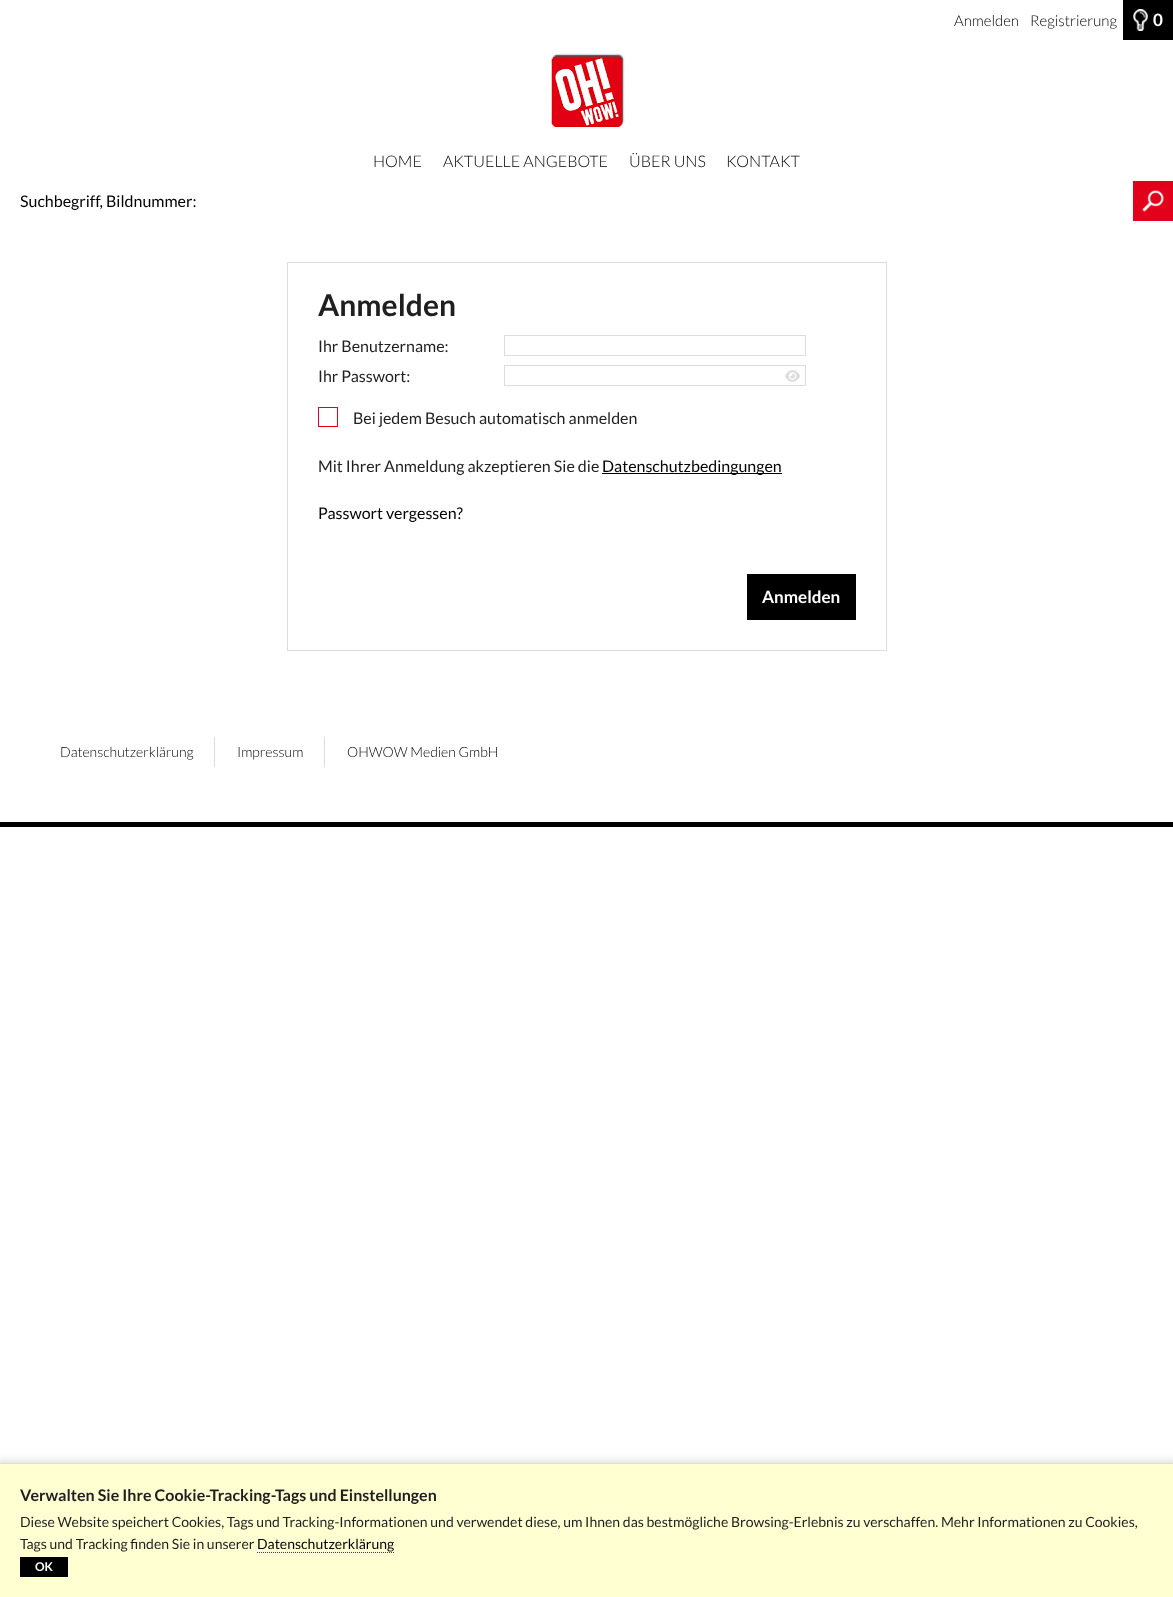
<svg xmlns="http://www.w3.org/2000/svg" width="1173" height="1597">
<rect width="100%" height="100%" fill="#fff"/>
<text x="954" y="26" style="font-family:Lato;font-size:15px;font-weight:300;fill:#000">Anmelden</text>
<text x="1030" y="26" style="font-family:Lato;font-size:15px;font-weight:300;fill:#000">Registrierung</text>
<rect x="1123" width="50" height="40" fill="#000"/>
<image x="1133" y="9" width="15" height="22" href="media/1.png"/>
<text x="1153" y="26" style="font-family:Lato;font-size:17px;font-weight:bold;fill:#fff">0</text>
<image x="551" y="53" width="74" height="74" href="media/2.png"/>
<text x="373" y="167" style="font-family:Lato;font-size:16px;font-weight:300;fill:#000">HOME</text>
<text x="443" y="167" style="font-family:Lato;font-size:16px;font-weight:300;fill:#000">AKTUELLE ANGEBOTE</text>
<text x="629" y="167" style="font-family:Lato;font-size:16px;font-weight:300;fill:#000">ÜBER UNS</text>
<text x="726" y="167" style="font-family:Lato;font-size:16px;font-weight:300;fill:#000">KONTAKT</text>
<text x="20" y="207" style="font-family:Lato;font-size:16px;fill:#000">Suchbegriff, Bildnummer:</text>
<rect x="1133" y="181" width="40" height="40" fill="#e3001b"/>
<image x="1142" y="190" width="22" height="22" href="media/3.png"/>
<rect x="287.5" y="262.5" width="599" height="388" fill="none" stroke="#ddd"/>
<text x="318" y="316" style="font-family:Lato;font-size:30px;font-weight:bold;fill:#1f1f1f">Anmelden</text>
<text x="318" y="352" style="font-family:Lato;font-size:16px;fill:#1f1f1f">Ihr Benutzername:</text>
<rect x="504.5" y="335.5" width="301" height="20" fill="none" stroke="#ddd"/>
<text x="318" y="382" style="font-family:Lato;font-size:16px;fill:#1f1f1f">Ihr Passwort:</text>
<rect x="504.5" y="365.5" width="301" height="20" fill="none" stroke="#ddd"/>
<image x="785" y="370" width="15" height="12" href="media/4.png"/>
<rect x="318.5" y="407.5" width="19" height="19" fill="none" stroke="#e3001b"/>
<text x="353" y="424" style="font-family:Lato;font-size:16px;fill:#1f1f1f">Bei jedem Besuch automatisch anmelden</text>
<text x="318" y="472" style="font-family:Lato;font-size:16px;fill:#1f1f1f">Mit Ihrer Anmeldung akzeptieren Sie die</text>
<rect x="602" y="473" width="180" height="1" fill="#000"/>
<text x="602" y="472" style="font-family:Lato;font-size:16px;fill:#000">Datenschutzbedingungen</text>
<text x="318" y="519" style="font-family:Lato;font-size:16px;fill:#000">Passwort vergessen?</text>
<rect x="747" y="574" width="109" height="46" fill="#000"/>
<text x="762" y="603" style="font-family:Lato;font-size:17px;font-weight:bold;fill:#fff">Anmelden</text>
<rect y="822" width="1173" height="5" fill="#000"/>
<rect x="214" y="737" width="1" height="30" fill="#ddd"/>
<text x="60" y="757" style="font-family:Lato;font-size:14px;font-weight:300;fill:#000">Datenschutzerklärung</text>
<rect x="324" y="737" width="1" height="30" fill="#ddd"/>
<text x="237" y="757" style="font-family:Lato;font-size:14px;font-weight:300;fill:#000">Impressum</text>
<text x="347" y="757" style="font-family:Lato;font-size:14px;font-weight:300;fill:#000">OHWOW Medien GmbH</text>
<rect x="-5" y="1461" width="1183" height="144" fill="#ddd" filter="blur(4px)"/>
<rect y="1463" width="1173" height="1" fill="#ddd"/>
<rect y="1464" width="1173" height="133" fill="#ffffd2"/>
<text x="20" y="1501" style="font-family:Lato;font-size:16px;font-weight:bold;fill:#1f1f1f">Verwalten Sie Ihre Cookie-Tracking-Tags und Einstellungen</text>
<text x="20" y="1527" style="font-family:Lato;font-size:14px;fill:#1f1f1f">Diese Website speichert Cookies, Tags und Tracking-Informationen und verwendet diese, um Ihnen das bestmögliche Browsing-Erlebnis zu verschaffen. Mehr Informationen zu Cookies,</text>
<text x="20" y="1549" style="font-family:Lato;font-size:14px;fill:#1f1f1f">Tags und Tracking finden Sie in unserer</text>
<text x="257" y="1549" style="font-family:Lato;font-size:14px;fill:#000">Datenschutzerklärung</text>
<path d="M257 1552.5h137" fill="none" stroke="#3c3c3c" stroke-dasharray="1 1"/>
<rect x="20" y="1557" width="48" height="20" fill="#000"/>
<text x="35" y="1571" style="font-family:Lato;font-size:12px;font-weight:bold;fill:#fff">OK</text>
</svg>
